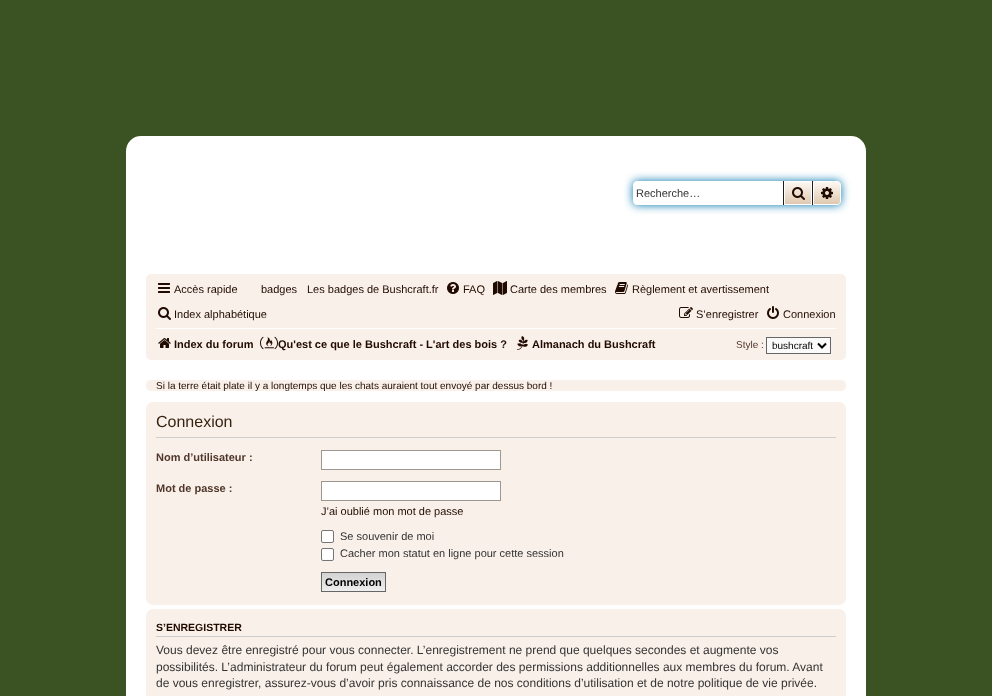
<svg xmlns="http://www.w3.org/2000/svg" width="992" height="696">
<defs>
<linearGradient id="g1" gradientUnits="userSpaceOnUse" x1="798" y1="181" x2="798" y2="205"><stop offset="0" stop-color="#fffaf5"/><stop offset="1" stop-color="#dec6ad"/></linearGradient>
<linearGradient id="g2" gradientUnits="userSpaceOnUse" x1="827" y1="181" x2="827" y2="205"><stop offset="0" stop-color="#fffaf5"/><stop offset="1" stop-color="#dec6ad"/></linearGradient>
<linearGradient id="g3" gradientUnits="userSpaceOnUse" x1="354" y1="573" x2="354" y2="591"><stop offset="0" stop-color="#d2d2d2"/><stop offset="1" stop-color="#efefef"/></linearGradient>
</defs>
<rect width="100%" height="100%" fill="#3b5323"/>
<rect x="126" y="136" width="740" height="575" rx="15" fill="#fff"/>
<rect x="633" y="181" width="208" height="24" rx="4" fill="#0075b0" filter="blur(5px)"/>
<path d="M637 181h146v24h-146c-2 0-4-2-4-4v-16c0-2 2-4 4-4z" fill="#fff"/>
<text x="636" y="197" style="font-family:Liberation Sans;font-size:11px;fill:#333">Recherche…</text>
<rect x="785" y="182" width="26" height="22" fill="url(#g1)"/>
<rect x="784.5" y="181.5" width="27" height="23" fill="none" stroke="#fff"/>
<rect x="812" y="181" width="1" height="24" fill="#1e1e1e"/>
<rect x="783" y="181" width="1" height="24" fill="#1e1e1e"/>
<image x="792" y="187" width="13" height="13" href="media/1.png"/>
<path d="M813.5 181.5h23.5c2 0 3.5 1.5 3.5 3.5v16c0 2-1.5 3.5-3.5 3.5h-23.5z" fill="url(#g2)" stroke="#fff"/>
<image x="821" y="187" width="12" height="12" href="media/2.png"/>
<rect x="146" y="274" width="700" height="86" rx="5" fill="#f9f0ea"/>
<image x="158" y="283" width="12" height="10" href="media/3.png"/>
<text x="174" y="293" style="font-family:Liberation Sans;font-size:11px;fill:#210b00">Accès rapide</text>
<text x="261" y="293" style="font-family:Liberation Sans;font-size:11px;fill:#210b00">badges</text>
<text x="307" y="293" style="font-family:Liberation Sans;font-size:11px;fill:#210b00">Les badges de Bushcraft.fr</text>
<image x="447" y="282" width="12" height="12" href="media/4.png"/>
<text x="463" y="293" style="font-family:Liberation Sans;font-size:11px;fill:#210b00">FAQ</text>
<image x="493" y="281" width="14" height="14" href="media/5.png"/>
<text x="510" y="293" style="font-family:Liberation Sans;font-size:11px;fill:#210b00">Carte des membres</text>
<image x="615" y="282" width="13" height="12" href="media/6.png"/>
<text x="632" y="293" style="font-family:Liberation Sans;font-size:11px;fill:#210b00">Règlement et avertissement</text>
<image x="158" y="307" width="13" height="13" href="media/7.png"/>
<text x="174" y="318" style="font-family:Liberation Sans;font-size:11px;fill:#210b00">Index alphabétique</text>
<image x="679" y="307" width="14" height="11" href="media/8.png"/>
<text x="696" y="318" style="font-family:Liberation Sans;font-size:11px;fill:#210b00">S’enregistrer</text>
<image x="767" y="306" width="12" height="13" href="media/9.png"/>
<text x="783" y="318" style="font-family:Liberation Sans;font-size:11px;fill:#210b00">Connexion</text>
<rect x="156" y="328" width="680" height="1" fill="#fff"/>
<image x="158" y="338" width="13" height="10" href="media/10.png"/>
<text x="174" y="348" style="font-family:Liberation Sans;font-size:11px;font-weight:bold;fill:#210b00">Index du forum</text>
<image x="260" y="336" width="18" height="14" href="media/11.png"/>
<text x="278" y="348" style="font-family:Liberation Sans;font-size:11px;font-weight:bold;fill:#210b00">Qu'est ce que le Bushcraft - L'art des bois ?</text>
<image x="517" y="336" width="11" height="14" href="media/12.png"/>
<text x="532" y="348" style="font-family:Liberation Sans;font-size:11px;font-weight:bold;fill:#210b00">Almanach du Bushcraft</text>
<text x="736" y="348" style="font-family:Liberation Sans;font-size:10px;fill:#50372a">Style :</text>
<rect x="766.5" y="337.5" width="64" height="16" fill="#fafafa" stroke="#666"/>
<path d="M818 343.5l4 4l4-4" fill="none" stroke="#000" stroke-width="2"/>
<text x="772" y="349" style="font-family:Liberation Sans;font-size:10px;fill:#000">bushcraft</text>
<rect x="146" y="380" width="700" height="11" rx="5" fill="#f9f0ea"/>
<text x="156" y="389" style="font-family:Liberation Sans;font-size:10px;fill:#210b00">Si la terre était plate il y a longtemps que les chats auraient tout envoyé par dessus bord !</text>
<rect x="146" y="402" width="700" height="203" rx="7" fill="#f9f0ea"/>
<rect x="156" y="437" width="680" height="1" fill="#ccc"/>
<text x="156" y="427" style="font-family:Liberation Sans;font-size:16px;fill:#372410">Connexion</text>
<text x="156" y="461" style="font-family:Liberation Sans;font-size:11px;font-weight:bold;fill:#50372a">Nom d’utilisateur :</text>
<rect x="321.5" y="450.5" width="179" height="19" fill="#fff" stroke="#9d9791"/>
<text x="156" y="492" style="font-family:Liberation Sans;font-size:11px;font-weight:bold;fill:#50372a">Mot de passe :</text>
<rect x="321.5" y="481.5" width="179" height="19" fill="#fff" stroke="#9d9791"/>
<text x="321" y="515" style="font-family:Liberation Sans;font-size:11px;fill:#210b00">J’ai oublié mon mot de passe</text>
<rect x="321.5" y="530.5" width="12" height="12" rx="1.5" fill="#fff" stroke="#767676"/>
<text x="340" y="540" style="font-family:Liberation Sans;font-size:11px;fill:#333">Se souvenir de moi</text>
<rect x="321.5" y="548.5" width="12" height="12" rx="1.5" fill="#fff" stroke="#767676"/>
<text x="340" y="557" style="font-family:Liberation Sans;font-size:11px;fill:#333">Cacher mon statut en ligne pour cette session</text>
<rect x="322" y="573" width="63" height="18" fill="url(#g3)"/>
<rect x="321.5" y="572.5" width="64" height="19" fill="none" stroke="#666"/>
<text x="325" y="586" style="font-family:Liberation Sans;font-size:11px;font-weight:bold;fill:#000">Connexion</text>
<rect x="146" y="609" width="700" height="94" rx="7" fill="#f9f0ea"/>
<rect x="156" y="636" width="680" height="1" fill="#ccc"/>
<text x="156" y="631" style="font-family:Liberation Sans;font-size:10.5px;font-weight:bold;fill:#210b00">S’ENREGISTRER</text>
<text x="156" y="654" style="font-family:Liberation Sans;font-size:12px;fill:#333">Vous devez être enregistré pour vous connecter. L’enregistrement ne prend que quelques secondes et augmente vos</text>
<text x="156" y="671" style="font-family:Liberation Sans;font-size:12px;fill:#333">possibilités. L’administrateur du forum peut également accorder des permissions additionnelles aux membres du forum. Avant</text>
<text x="156" y="687" style="font-family:Liberation Sans;font-size:12px;fill:#333">de vous enregistrer, assurez-vous d’avoir pris connaissance de nos conditions d’utilisation et de notre politique de vie privée.</text>
</svg>
